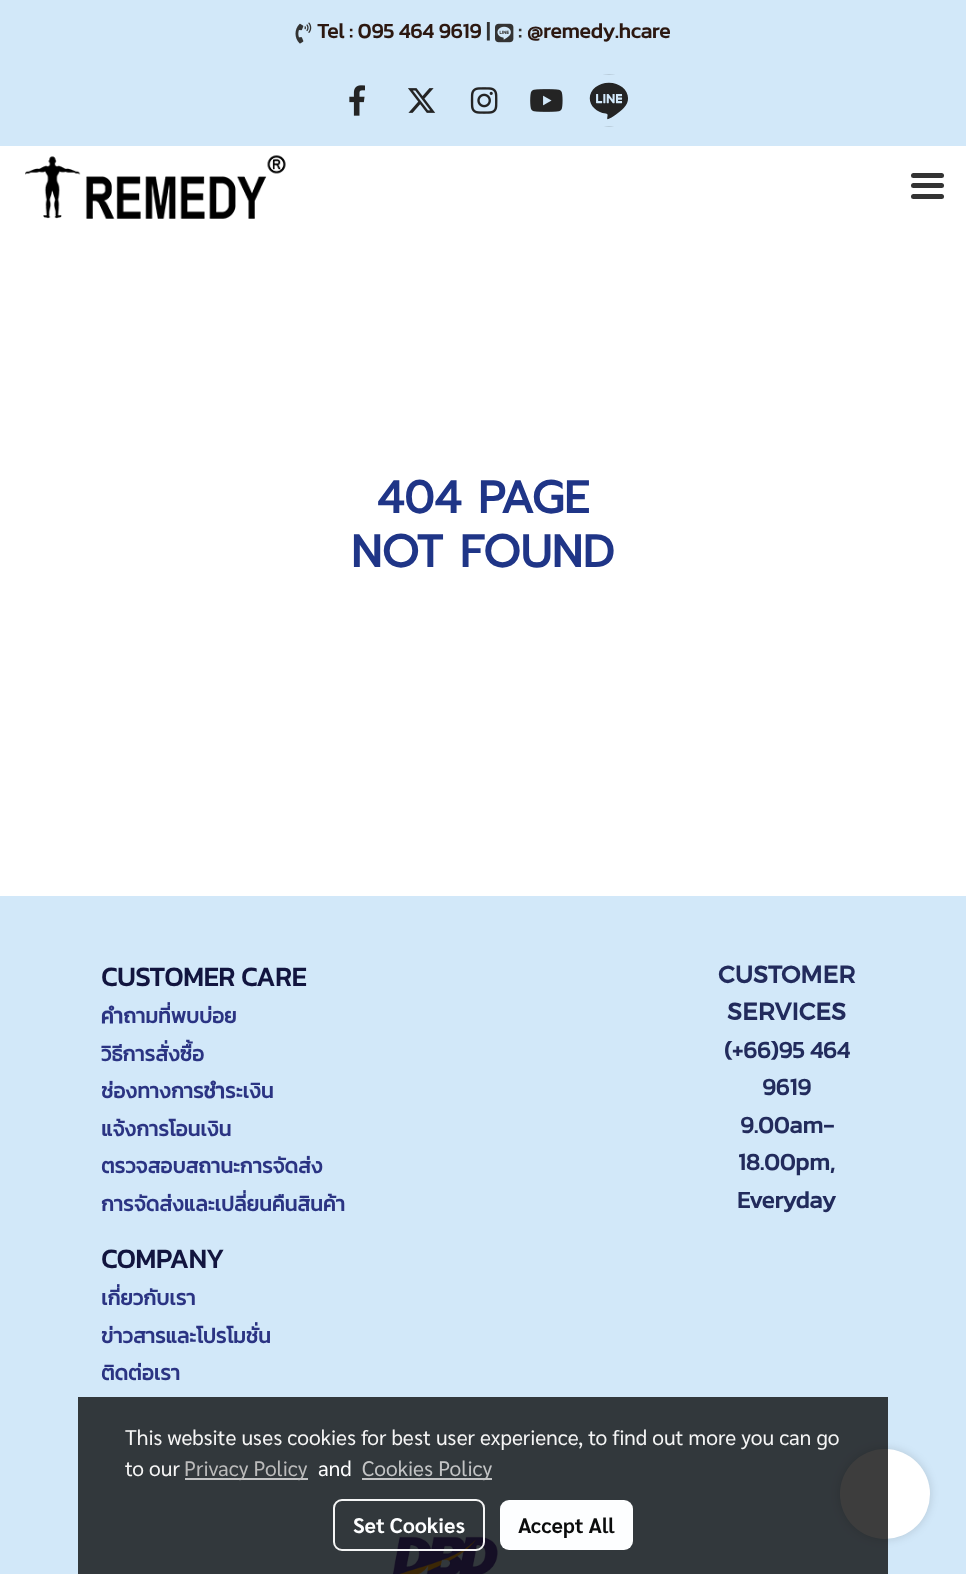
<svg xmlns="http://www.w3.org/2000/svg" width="966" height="1574">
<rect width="100%" height="100%" fill="#fff"/>
<rect width="966" height="146" fill="#d2e8f9"/>
<image x="295" y="22" width="17" height="22" href="media/1.png"/>
<text x="317" y="38" style="font-family:Kanit;font-size:21px;font-weight:bold;fill:#2c1811">Tel : 095 464 9619</text>
<text x="486" y="38" style="font-family:Kanit;font-size:21px;font-weight:bold;fill:#333">|</text>
<image x="495" y="23" width="19" height="20" href="media/2.png"/>
<text x="518" y="38" style="font-family:Kanit;font-size:21px;font-weight:bold;fill:#333">:</text>
<text x="527" y="38" style="font-family:Kanit;font-size:21px;font-weight:bold;fill:#2c1811">@remedy.hcare</text>
<image x="349" y="85" width="16" height="31" href="media/3.png"/>
<image x="408" y="88" width="28" height="25" href="media/4.png"/>
<image x="470" y="87" width="28" height="27" href="media/5.png"/>
<image x="530" y="89" width="33" height="23" href="media/6.png"/>
<image x="589" y="74" width="39" height="53" href="media/7.png"/>
<image x="25" y="155" width="261" height="64" href="media/8.png"/>
<rect x="911" y="183" width="33" height="5" rx="2.5" fill="#333"/>
<rect x="911" y="173" width="33" height="5" rx="2.5" fill="#333"/>
<rect x="911" y="194" width="33" height="5" rx="2.5" fill="#333"/>
<text x="377" y="513" style="font-family:Prompt;font-size:45px;font-weight:bold;fill:#1f3587">404 PAGE</text>
<text x="351" y="567" style="font-family:Prompt;font-size:45px;font-weight:bold;fill:#1f3587">NOT FOUND</text>
<rect y="896" width="966" height="678" fill="#d2e8f9"/>
<text x="101" y="986" style="font-family:Kanit;font-size:27px;font-weight:bold;fill:#12153f">CUSTOMER CARE</text>
<text x="101" y="1023" style="font-family:Kanit;font-size:21px;font-weight:bold;fill:#2b3483">คำถามที่พบบ่อย</text>
<text x="101" y="1061" style="font-family:Kanit;font-size:21px;font-weight:bold;fill:#2b3483">วิธีการสั่งซื้อ</text>
<text x="101" y="1098" style="font-family:Kanit;font-size:21px;font-weight:bold;fill:#2b3483">ช่องทางการชำระเงิน</text>
<text x="101" y="1136" style="font-family:Kanit;font-size:21px;font-weight:bold;fill:#2b3483">แจ้งการโอนเงิน</text>
<text x="101" y="1173" style="font-family:Kanit;font-size:21px;font-weight:bold;fill:#2b3483">ตรวจสอบสถานะการจัดส่ง</text>
<text x="101" y="1211" style="font-family:Kanit;font-size:21px;font-weight:bold;fill:#2b3483">การจัดส่งและเปลี่ยนคืนสินค้า</text>
<text x="101" y="1268" style="font-family:Kanit;font-size:27px;font-weight:bold;fill:#12153f">COMPANY</text>
<text x="101" y="1305" style="font-family:Kanit;font-size:21px;font-weight:bold;fill:#2b3483">เกี่ยวกับเรา</text>
<text x="101" y="1343" style="font-family:Kanit;font-size:21px;font-weight:bold;fill:#2b3483">ข่าวสารและโปรโมชั่น</text>
<text x="101" y="1380" style="font-family:Kanit;font-size:21px;font-weight:bold;fill:#2b3483">ติดต่อเรา</text>
<text x="718" y="983" style="font-family:Montserrat;font-size:24px;font-weight:bold;fill:#222b5c">CUSTOMER</text>
<text x="727" y="1020" style="font-family:Montserrat;font-size:24px;font-weight:bold;fill:#222b5c">SERVICES</text>
<text x="724" y="1058" style="font-family:Kanit;font-size:24px;font-weight:bold;fill:#222b5c">(+66)95 464</text>
<text x="762" y="1095" style="font-family:Kanit;font-size:24px;font-weight:bold;fill:#222b5c">9619</text>
<text x="740" y="1133" style="font-family:Kanit;font-size:24px;font-weight:bold;fill:#222b5c">9.00am-</text>
<text x="738" y="1170" style="font-family:Kanit;font-size:24px;font-weight:bold;fill:#222b5c">18.00pm,</text>
<text x="737" y="1208" style="font-family:Kanit;font-size:24px;font-weight:bold;fill:#222b5c">Everyday</text>
<image x="392" y="1536" width="106" height="38" href="media/9.png"/>
<rect x="840" y="1449" width="90" height="90" rx="45" fill="#00000024" filter="blur(5px)"/>
<circle cx="885" cy="1494" r="45" fill="#fff"/>
<rect x="78" y="1397" width="810" height="177" fill="#000000c2"/>
<text x="125" y="1445" style="font-family:Sarabun;font-size:21px;fill:#f5f5f5">This website uses cookies for best user experience, to find out more you can go</text>
<text x="125" y="1476" style="font-family:Sarabun;font-size:21px;fill:#f5f5f5">to our</text>
<rect x="185" y="1478" width="123" height="2" fill="#c3c4c5"/>
<text x="184" y="1476" style="font-family:Sarabun;font-size:21px;fill:#bbb">Privacy Policy</text>
<text x="318" y="1476" style="font-family:Sarabun;font-size:21px;fill:#fdfeff">and</text>
<rect x="362" y="1478" width="130" height="2" fill="#c3c4c5"/>
<text x="362" y="1476" style="font-family:Sarabun;font-size:21px;fill:#c3c4c5">Cookies Policy</text>
<rect x="334" y="1500" width="150" height="50" rx="8" fill="none" stroke="#fffffff2" stroke-width="2"/>
<text x="353" y="1533" style="font-family:Sarabun;font-size:21px;font-weight:bold;fill:#fdfeff">Set Cookies</text>
<rect x="500" y="1500" width="133" height="50" rx="9" fill="#fdfeff"/>
<text x="518" y="1533" style="font-family:Sarabun;font-size:21px;font-weight:bold;fill:#0b0c0c">Accept All</text>
</svg>
